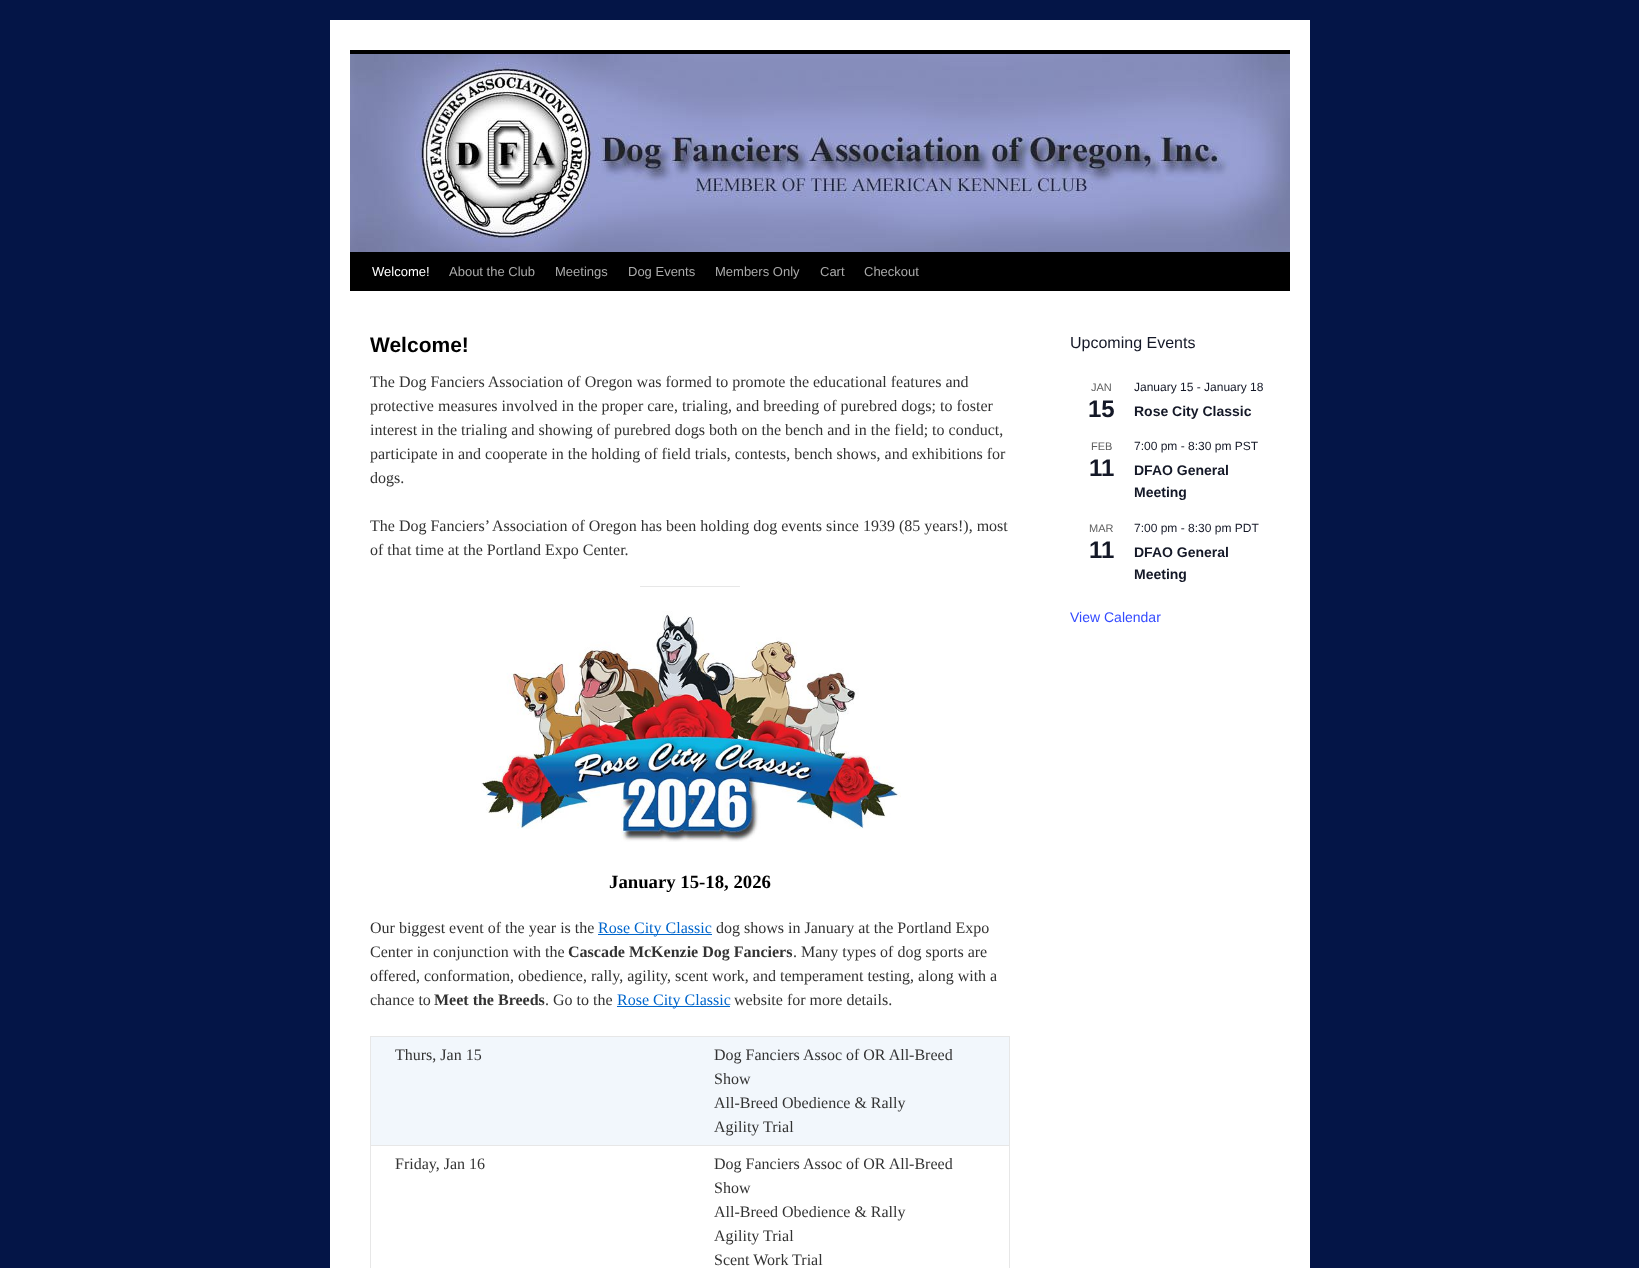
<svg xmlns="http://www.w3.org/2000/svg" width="1639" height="1268">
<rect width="100%" height="100%" fill="#041547"/>
<rect x="330" y="20" width="980" height="1248" fill="#fff"/>
<rect x="350" y="50" width="940" height="4" fill="#000"/>
<rect x="350" y="252" width="940" height="39" fill="#000"/>
<image x="350" y="54" width="940" height="198" href="media/1.png"/>
<text x="372" y="276" style="font-family:Liberation Sans;font-size:13px;fill:#fff">Welcome!</text>
<text x="449" y="276" style="font-family:Liberation Sans;font-size:13px;fill:#aaa">About the Club</text>
<text x="555" y="276" style="font-family:Liberation Sans;font-size:13px;fill:#aaa">Meetings</text>
<text x="628" y="276" style="font-family:Liberation Sans;font-size:13px;fill:#aaa">Dog Events</text>
<text x="715" y="276" style="font-family:Liberation Sans;font-size:13px;fill:#aaa">Members Only</text>
<text x="820" y="276" style="font-family:Liberation Sans;font-size:13px;fill:#aaa">Cart</text>
<text x="864" y="276" style="font-family:Liberation Sans;font-size:13px;fill:#aaa">Checkout</text>
<text x="370" y="352" style="font-family:Liberation Sans;font-size:21px;font-weight:bold;fill:#000">Welcome!</text>
<text x="370" y="387" style="font-family:Liberation Serif;font-size:16px;fill:#333">The Dog Fanciers Association of Oregon was formed to promote the educational features and</text>
<text x="370" y="411" style="font-family:Liberation Serif;font-size:16px;fill:#333">protective measures involved in the proper care, trialing, and breeding of purebred dogs; to foster</text>
<text x="370" y="435" style="font-family:Liberation Serif;font-size:16px;fill:#333">interest in the trialing and showing of purebred dogs both on the bench and in the field; to conduct,</text>
<text x="370" y="459" style="font-family:Liberation Serif;font-size:16px;fill:#333">participate in and cooperate in the holding of field trials, contests, bench shows, and exhibitions for</text>
<text x="370" y="483" style="font-family:Liberation Serif;font-size:16px;fill:#333">dogs.</text>
<text x="370" y="531" style="font-family:Liberation Serif;font-size:16px;fill:#333">The Dog Fanciers’ Association of Oregon has been holding dog events since 1939 (85 years!), most</text>
<text x="370" y="555" style="font-family:Liberation Serif;font-size:16px;fill:#333">of that time at the Portland Expo Center.</text>
<rect x="640" y="586" width="100" height="1" fill="#e7e7e7"/>
<image x="481" y="611" width="420" height="231" href="media/2.png"/>
<text x="609" y="888" style="font-family:Liberation Serif;font-size:18.75px;font-weight:bold;fill:#000">January 15-18, 2026</text>
<text x="370" y="933" style="font-family:Liberation Serif;font-size:16px;fill:#333">Our biggest event of the year is the</text>
<rect x="598" y="934" width="114" height="1" fill="#06c"/>
<text x="598" y="933" style="font-family:Liberation Serif;font-size:16px;fill:#06c">Rose City Classic</text>
<text x="716" y="933" style="font-family:Liberation Serif;font-size:16px;fill:#333">dog shows in January at the Portland Expo</text>
<text x="370" y="957" style="font-family:Liberation Serif;font-size:16px;fill:#333">Center in conjunction with the</text>
<text x="568" y="957" style="font-family:Liberation Serif;font-size:16px;font-weight:bold;fill:#333">Cascade McKenzie Dog Fanciers</text>
<text x="793" y="957" style="font-family:Liberation Serif;font-size:16px;fill:#333">. Many types of dog sports are</text>
<text x="370" y="981" style="font-family:Liberation Serif;font-size:16px;fill:#333">offered, conformation, obedience, rally, agility, scent work, and temperament testing, along with a</text>
<text x="370" y="1005" style="font-family:Liberation Serif;font-size:16px;fill:#333">chance to</text>
<text x="434" y="1005" style="font-family:Liberation Serif;font-size:16px;font-weight:bold;fill:#333">Meet the Breeds</text>
<text x="545" y="1005" style="font-family:Liberation Serif;font-size:16px;fill:#333">. Go to the</text>
<rect x="617" y="1006" width="113" height="1" fill="#06c"/>
<text x="617" y="1005" style="font-family:Liberation Serif;font-size:16px;fill:#06c">Rose City Classic</text>
<text x="734" y="1005" style="font-family:Liberation Serif;font-size:16px;fill:#333">website for more details.</text>
<rect x="370" y="1036" width="640" height="1" fill="#e7e7e7"/>
<rect x="1009" y="1036" width="1" height="232" fill="#e7e7e7"/>
<rect x="370" y="1036" width="1" height="232" fill="#e7e7e7"/>
<rect x="371" y="1037" width="638" height="108" fill="#f2f7fc"/>
<text x="395" y="1060" style="font-family:Liberation Serif;font-size:16px;fill:#333">Thurs, Jan 15</text>
<text x="714" y="1060" style="font-family:Liberation Serif;font-size:16px;fill:#333">Dog Fanciers Assoc of OR All-Breed</text>
<text x="714" y="1084" style="font-family:Liberation Serif;font-size:16px;fill:#333">Show</text>
<text x="714" y="1108" style="font-family:Liberation Serif;font-size:16px;fill:#333">All-Breed Obedience &amp; Rally</text>
<text x="714" y="1132" style="font-family:Liberation Serif;font-size:16px;fill:#333">Agility Trial</text>
<text x="395" y="1169" style="font-family:Liberation Serif;font-size:16px;fill:#333">Friday, Jan 16</text>
<rect x="370" y="1145" width="640" height="1" fill="#e7e7e7"/>
<text x="714" y="1169" style="font-family:Liberation Serif;font-size:16px;fill:#333">Dog Fanciers Assoc of OR All-Breed</text>
<text x="714" y="1193" style="font-family:Liberation Serif;font-size:16px;fill:#333">Show</text>
<text x="714" y="1217" style="font-family:Liberation Serif;font-size:16px;fill:#333">All-Breed Obedience &amp; Rally</text>
<text x="714" y="1241" style="font-family:Liberation Serif;font-size:16px;fill:#333">Agility Trial</text>
<text x="714" y="1265" style="font-family:Liberation Serif;font-size:16px;fill:#333">Scent Work Trial</text>
<text x="1070" y="348" style="font-family:Liberation Sans;font-size:16px;fill:#141827">Upcoming Events</text>
<text x="1091" y="391" style="font-family:Liberation Sans;font-size:11px;fill:#5d5d5d">JAN</text>
<text x="1088" y="417" style="font-family:Liberation Sans;font-size:24px;font-weight:bold;fill:#141827">15</text>
<text x="1134" y="391" style="font-family:Liberation Sans;font-size:12px;fill:#141827">January 15 - January 18</text>
<text x="1134" y="416" style="font-family:Liberation Sans;font-size:14px;font-weight:bold;fill:#141827">Rose City Classic</text>
<text x="1091" y="450" style="font-family:Liberation Sans;font-size:11px;fill:#5d5d5d">FEB</text>
<text x="1089" y="476" style="font-family:Liberation Sans;font-size:24px;font-weight:bold;fill:#141827">11</text>
<text x="1134" y="450" style="font-family:Liberation Sans;font-size:12px;fill:#141827">7:00 pm - 8:30 pm PST</text>
<text x="1134" y="475" style="font-family:Liberation Sans;font-size:14px;font-weight:bold;fill:#141827">DFAO General</text>
<text x="1134" y="497" style="font-family:Liberation Sans;font-size:14px;font-weight:bold;fill:#141827">Meeting</text>
<text x="1089" y="532" style="font-family:Liberation Sans;font-size:11px;fill:#5d5d5d">MAR</text>
<text x="1089" y="558" style="font-family:Liberation Sans;font-size:24px;font-weight:bold;fill:#141827">11</text>
<text x="1134" y="532" style="font-family:Liberation Sans;font-size:12px;fill:#141827">7:00 pm - 8:30 pm PDT</text>
<text x="1134" y="557" style="font-family:Liberation Sans;font-size:14px;font-weight:bold;fill:#141827">DFAO General</text>
<text x="1134" y="579" style="font-family:Liberation Sans;font-size:14px;font-weight:bold;fill:#141827">Meeting</text>
<text x="1070" y="622" style="font-family:Liberation Sans;font-size:14px;fill:#334aff">View Calendar</text>
</svg>
